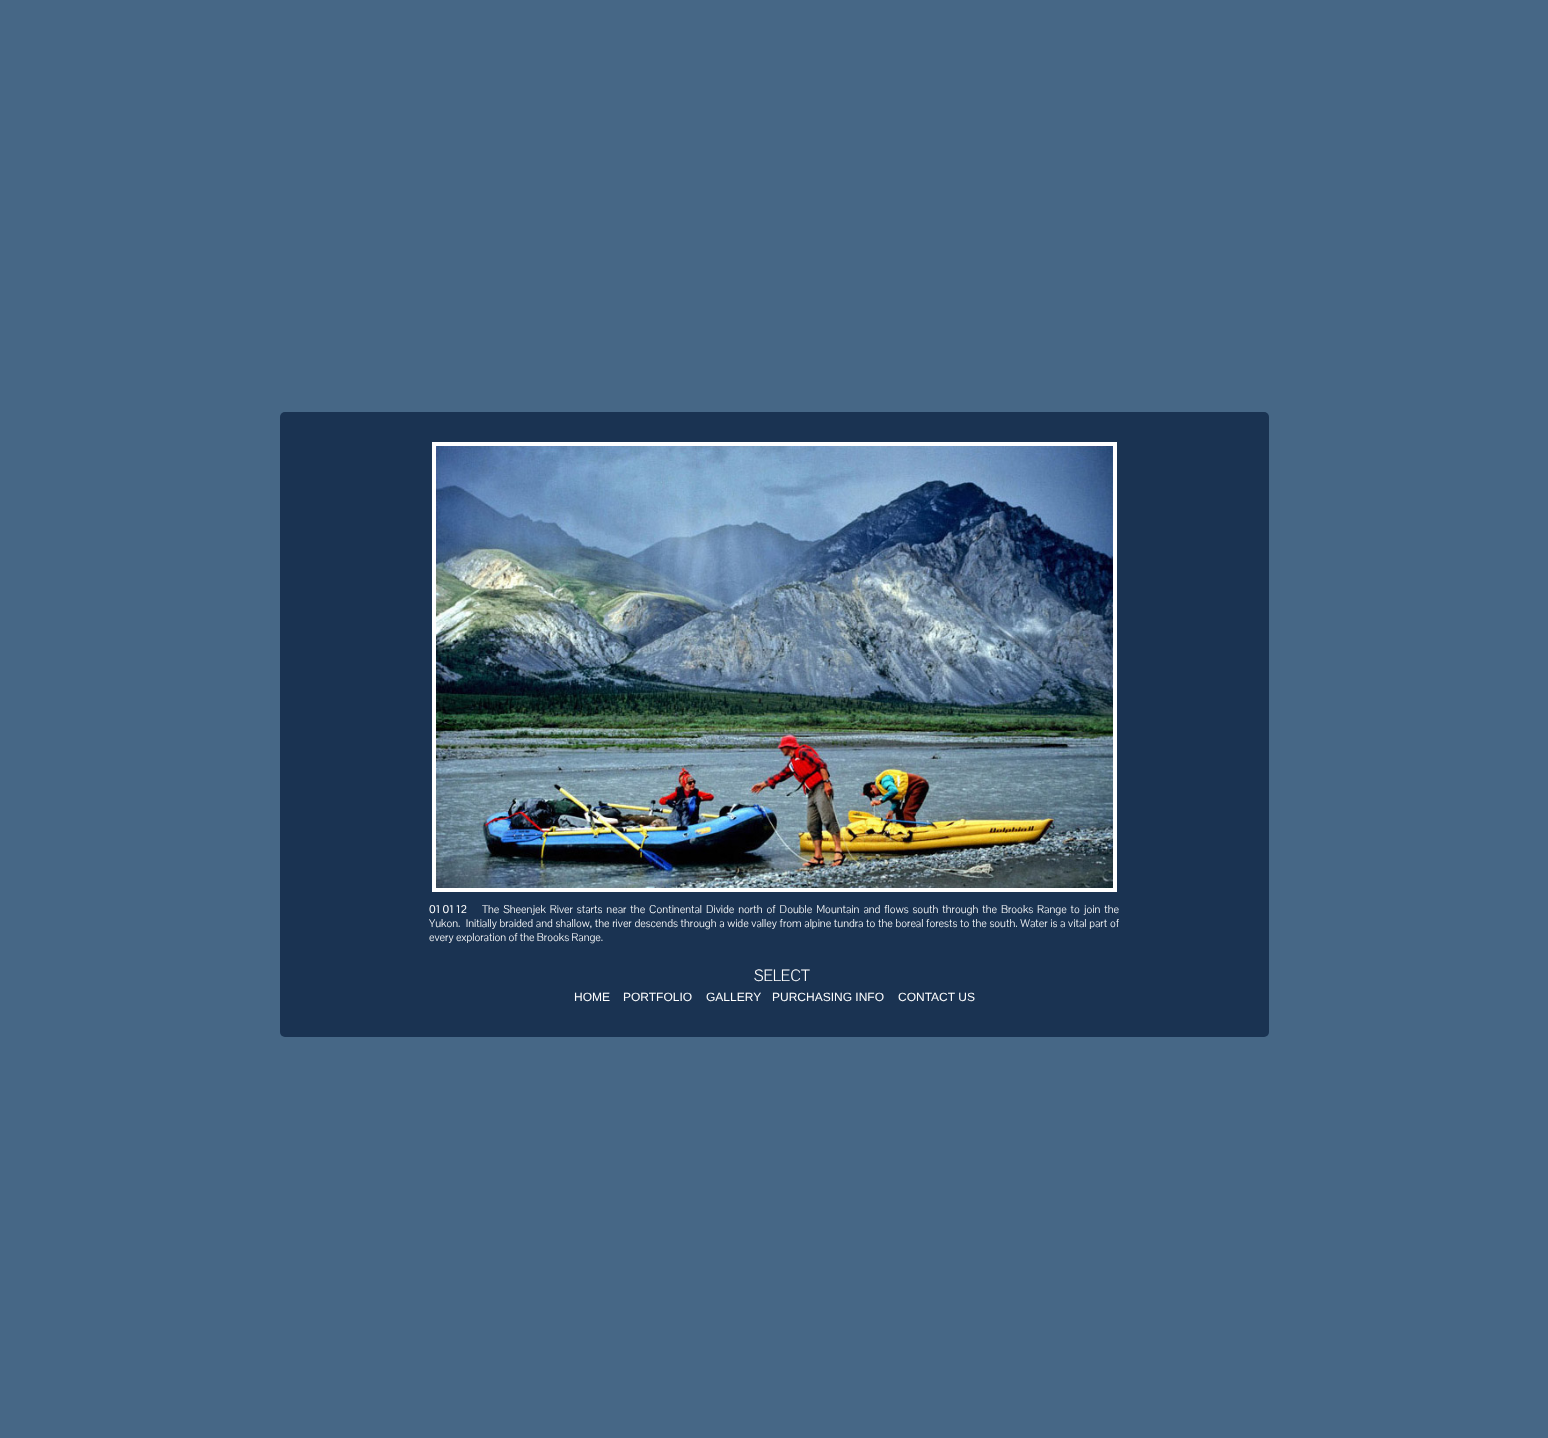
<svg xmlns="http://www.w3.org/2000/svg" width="1548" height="1438">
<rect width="100%" height="100%" fill="#466786"/>
<rect x="280" y="412" width="989" height="625" rx="5" fill="#1a3352"/>
<rect x="434" y="444" width="681" height="446" fill="none" stroke="#fff" stroke-width="4"/>
<image x="436" y="446" width="677" height="442" href="media/1.png"/>
<text x="429" y="913" style="font-family:Pontano Sans;font-size:11px;fill:#fff">01 01 12</text>
<text x="482" y="913" word-spacing="1.7" style="font-family:Pontano Sans;font-size:11px;font-weight:300;fill:#fff">The Sheenjek River starts near the Continental Divide north of Double Mountain and flows south through the Brooks Range to join the</text>
<text x="429" y="927" word-spacing="0.4" style="font-family:Pontano Sans;font-size:11px;font-weight:300;fill:#fff" xml:space="preserve">Yukon.  Initially braided and shallow, the river descends through a wide valley from alpine tundra to the boreal forests to the south. Water is a vital part of</text>
<text x="429" y="941" style="font-family:Pontano Sans;font-size:11px;font-weight:300;fill:#fff">every exploration of the Brooks Range.</text>
<text x="754" y="981" style="font-family:Pontano Sans;font-size:16px;font-weight:300;fill:#fff">SELECT</text>
<text x="574" y="1001" style="font-family:Liberation Sans;font-size:12px;fill:#fff">HOME</text>
<text x="623" y="1001" style="font-family:Liberation Sans;font-size:12px;fill:#fff">PORTFOLIO</text>
<text x="706" y="1001" style="font-family:Liberation Sans;font-size:12px;fill:#fff">GALLERY</text>
<text x="772" y="1001" style="font-family:Liberation Sans;font-size:12px;fill:#fff">PURCHASING INFO</text>
<text x="898" y="1001" style="font-family:Liberation Sans;font-size:12px;fill:#fff">CONTACT US</text>
</svg>
